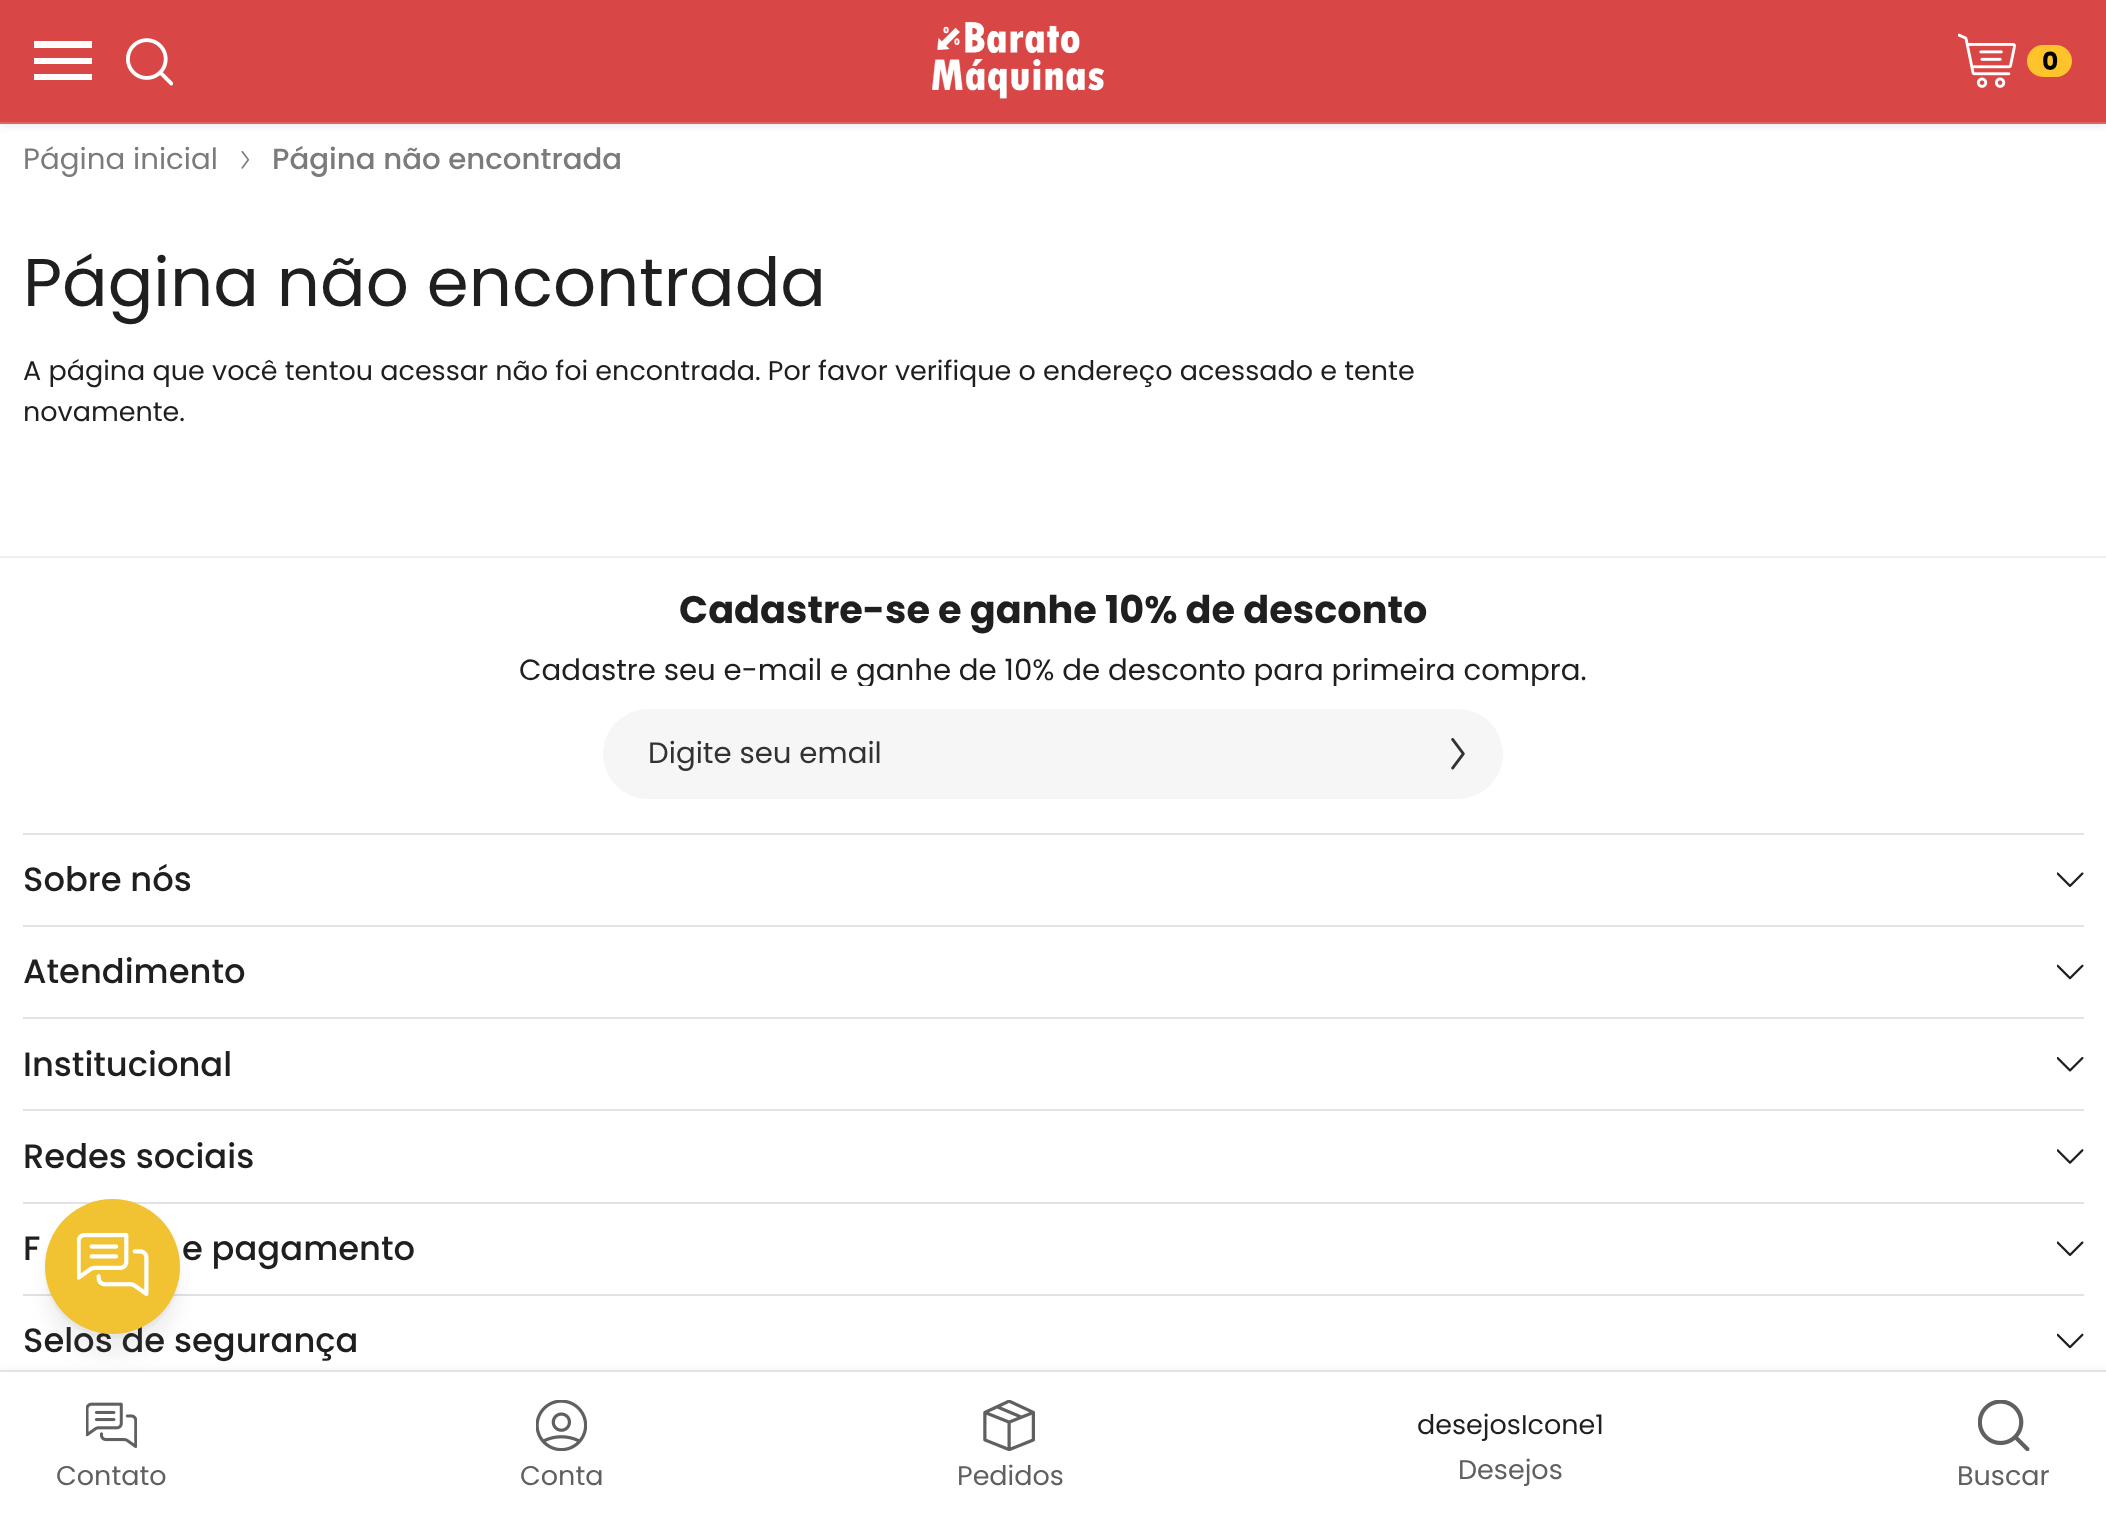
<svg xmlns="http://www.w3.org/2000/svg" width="2106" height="1535">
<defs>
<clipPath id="clip1"><rect x="23" y="653" width="2061" height="33"/></clipPath>
</defs>
<rect width="100%" height="100%" fill="#fff"/>
<rect y="2" width="2106" height="124" fill="#52525221" filter="blur(4.5px)"/>
<rect width="2106" height="122" fill="#d84646"/>
<rect y="122" width="2106" height="2" fill="#dc6666"/>
<rect x="34" y="74" width="58" height="6" fill="#fff"/>
<rect x="34" y="58" width="58" height="6" fill="#fff"/>
<rect x="34" y="41" width="58" height="7" fill="#fff"/>
<image x="126" y="38" width="47" height="48" href="media/1.png"/>
<image x="932" y="21" width="173" height="78" href="media/2.png"/>
<image x="1958" y="33" width="58" height="55" href="media/3.png"/>
<rect x="2027" y="45" width="45" height="32" rx="16" fill="#ffc42c"/>
<text x="2042" y="70" style="font-family:Poppins;font-size:25px;font-weight:bold;fill:#000">0</text>
<text x="23" y="169" style="font-family:Poppins;font-size:29.25px;fill:#7b7b7b">Página inicial</text>
<image x="241" y="151" width="9" height="18" href="media/4.png"/>
<text x="272" y="169" style="font-family:Poppins;font-size:29.25px;font-weight:500;fill:#7b7b7b">Página não encontrada</text>
<text x="23" y="306" style="font-family:Poppins;font-size:67.5px;fill:#201f1f">Página não encontrada</text>
<text x="23" y="380" style="font-family:Poppins;font-size:27px;fill:#201f1f">A página que você tentou acessar não foi encontrada. Por favor verifique o endereço acessado e tente</text>
<text x="23" y="421" style="font-family:Poppins;font-size:27px;fill:#201f1f">novamente.</text>
<rect y="556" width="2106" height="2" fill="#efefef"/>
<text x="679" y="623" style="font-family:Poppins;font-size:38.25px;font-weight:bold;fill:#201f1f">Cadastre-se e ganhe 10% de desconto</text>
<g clip-path="url(#clip1)">
<text x="519" y="680" style="font-family:Poppins;font-size:29.25px;fill:#201f1f">Cadastre seu e-mail e ganhe de 10% de desconto para primeira compra.</text>
</g>
<rect x="603" y="709" width="900" height="90" rx="45" fill="#f6f6f6"/>
<text x="648" y="763" style="font-family:Poppins;font-size:29.25px;fill:#323232">Digite seu email</text>
<image x="1451" y="738" width="14" height="32" href="media/5.png"/>
<rect x="23" y="833" width="2061" height="2" fill="#e2e2e2"/>
<text x="23" y="891" style="font-family:Poppins;font-size:33.75px;font-weight:500;fill:#201f1f">Sobre nós</text>
<image x="2057" y="872" width="27" height="15" href="media/6.png"/>
<rect x="23" y="925" width="2061" height="2" fill="#e2e2e2"/>
<text x="23" y="983" style="font-family:Poppins;font-size:33.75px;font-weight:500;fill:#201f1f">Atendimento</text>
<image x="2057" y="964" width="27" height="16" href="media/7.png"/>
<rect x="23" y="1017" width="2061" height="2" fill="#e2e2e2"/>
<text x="23" y="1076" style="font-family:Poppins;font-size:33.75px;font-weight:500;fill:#201f1f">Institucional</text>
<image x="2057" y="1057" width="27" height="15" href="media/8.png"/>
<rect x="23" y="1109" width="2061" height="2" fill="#e2e2e2"/>
<text x="23" y="1168" style="font-family:Poppins;font-size:33.75px;font-weight:500;fill:#201f1f">Redes sociais</text>
<image x="2057" y="1149" width="27" height="15" href="media/9.png"/>
<rect x="23" y="1202" width="2061" height="2" fill="#e2e2e2"/>
<text x="23" y="1260" style="font-family:Poppins;font-size:33.75px;font-weight:500;fill:#201f1f">F</text>
<text x="182" y="1260" style="font-family:Poppins;font-size:33.75px;font-weight:500;fill:#201f1f">e pagamento</text>
<image x="2057" y="1241" width="27" height="15" href="media/6.png"/>
<rect x="23" y="1294" width="2061" height="2" fill="#e2e2e2"/>
<text x="23" y="1352" style="font-family:Poppins;font-size:33.75px;font-weight:500;fill:#201f1f">Selos de segurança</text>
<image x="2057" y="1333" width="27" height="16" href="media/7.png"/>
<rect x="45" y="1222" width="135" height="135" rx="67.5" fill="#6767671a" filter="blur(9px)"/>
<rect x="45" y="1204" width="135" height="135" rx="67.5" fill="#0000000a" filter="blur(1px)"/>
<circle cx="112.5" cy="1266.5" r="67.5" fill="#f1c232"/>
<image x="77" y="1232" width="72" height="64" href="media/10.png"/>
<rect y="1370" width="2106" height="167" fill="#52525214" filter="blur(4.5px)"/>
<rect y="1372" width="2106" height="163" fill="#fff"/>
<rect y="1370" width="2106" height="2" fill="#e2e2e2"/>
<image x="86" y="1402" width="51" height="46" href="media/11.png"/>
<text x="56" y="1485" style="font-family:Poppins;font-size:27px;fill:#606060">Contato</text>
<image x="536" y="1400" width="51" height="51" href="media/12.png"/>
<text x="520" y="1485" style="font-family:Poppins;font-size:27px;fill:#606060">Conta</text>
<image x="983" y="1400" width="52" height="51" href="media/13.png"/>
<text x="957" y="1485" style="font-family:Poppins;font-size:27px;fill:#606060">Pedidos</text>
<text x="1417" y="1434" style="font-family:Poppins;font-size:27px;fill:#201f1f">desejosIcone1</text>
<text x="1458" y="1479" style="font-family:Poppins;font-size:27px;fill:#606060">Desejos</text>
<image x="1978" y="1400" width="52" height="51" href="media/14.png"/>
<text x="1957" y="1485" style="font-family:Poppins;font-size:27px;fill:#606060">Buscar</text>
</svg>
